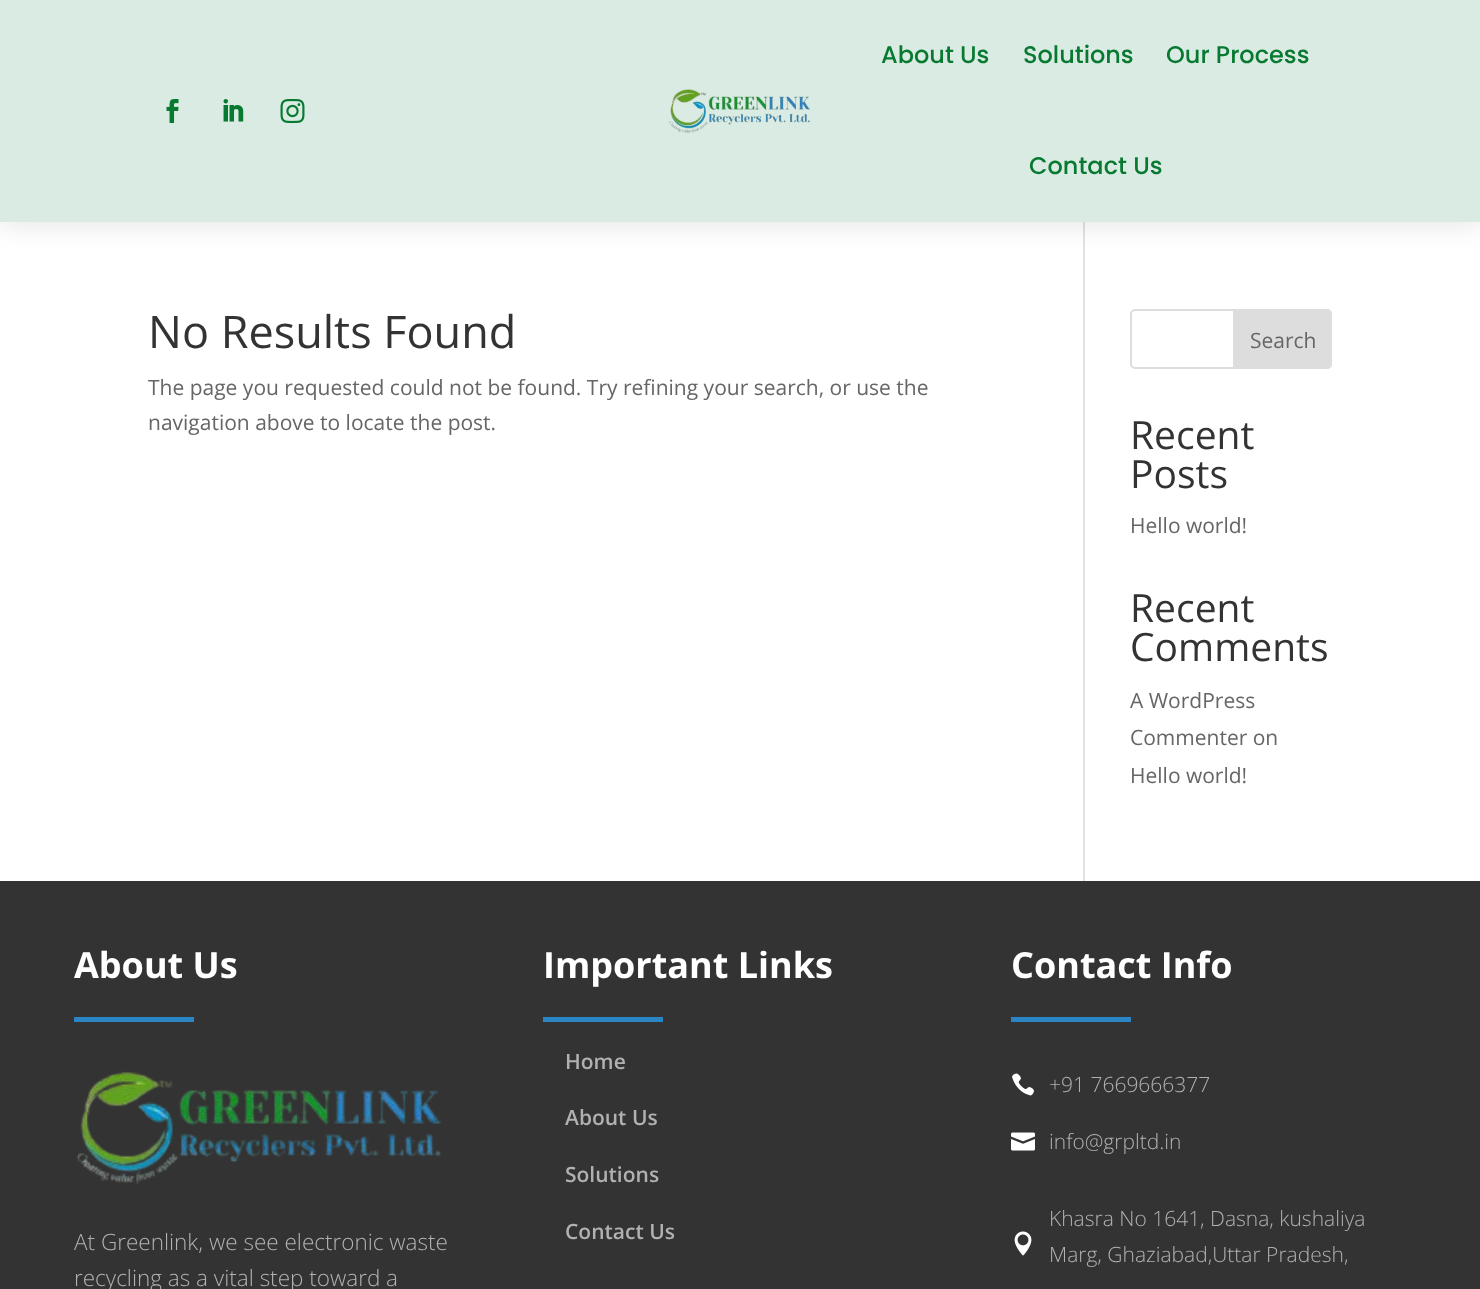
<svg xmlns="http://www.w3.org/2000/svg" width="1480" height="1289">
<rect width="100%" height="100%" fill="#fff"/>
<rect x="1083" y="222" width="2" height="659" fill="#e2e2e2"/>
<rect y="3" width="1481" height="222" fill="#0000001a" filter="blur(13.5px)"/>
<rect width="1480" height="222" fill="#daebe3"/>
<image x="166" y="99" width="13" height="24" href="media/1.png"/>
<image x="223" y="99" width="21" height="23" href="media/2.png"/>
<image x="280" y="99" width="25" height="24" href="media/3.png"/>
<image x="669" y="89" width="141" height="44" href="media/4.png"/>
<text x="881" y="63" style="font-family:Poppins;font-size:24px;font-weight:500;fill:#077931">About Us</text>
<text x="1023" y="63" style="font-family:Poppins;font-size:24px;font-weight:500;fill:#077931">Solutions</text>
<text x="1166" y="63" style="font-family:Poppins;font-size:24px;font-weight:500;fill:#077931">Our Process</text>
<text x="1029" y="174" style="font-family:Poppins;font-size:24px;font-weight:500;fill:#077931">Contact Us</text>
<text x="148" y="348" style="font-family:Open Sans;font-size:45px;fill:#333">No Results Found</text>
<text x="148" y="395" style="font-family:Open Sans;font-size:21px;fill:#666">The page you requested could not be found. Try refining your search, or use the</text>
<text x="148" y="430" style="font-family:Open Sans;font-size:21px;fill:#666">navigation above to locate the post.</text>
<rect x="1131" y="310" width="200" height="58" rx="4" fill="none" stroke="#ddd" stroke-width="2"/>
<path d="M1234 310h93c2 0 4 2 4 4v50c0 2-2 4-4 4h-93z" fill="#ddd" stroke="#ddd" stroke-width="2"/>
<text x="1250" y="348" style="font-family:Open Sans;font-size:21px;fill:#666">Search</text>
<text x="1130" y="449" style="font-family:Open Sans;font-size:39px;fill:#333">Recent</text>
<text x="1130" y="488" style="font-family:Open Sans;font-size:39px;fill:#333">Posts</text>
<text x="1130" y="533" style="font-family:Open Sans;font-size:21px;fill:#666">Hello world!</text>
<text x="1130" y="622" style="font-family:Open Sans;font-size:39px;fill:#333">Recent</text>
<text x="1130" y="661" style="font-family:Open Sans;font-size:39px;fill:#333">Comments</text>
<text x="1130" y="708" style="font-family:Open Sans;font-size:21px;fill:#666">A WordPress</text>
<text x="1130" y="745" style="font-family:Open Sans;font-size:21px;fill:#666">Commenter on</text>
<text x="1130" y="783" style="font-family:Open Sans;font-size:21px;fill:#666">Hello world!</text>
<rect y="881" width="1480" height="408" fill="#333"/>
<text x="74" y="978" style="font-family:Open Sans;font-size:36px;font-weight:bold;fill:#fff">About Us</text>
<rect x="74" y="1017" width="120" height="5" fill="#2b85c5"/>
<image x="75" y="1071" width="367" height="113" href="media/5.png"/>
<text x="74" y="1250" style="font-family:Open Sans;font-size:22.5px;font-weight:300;fill:#b1b1b1">At Greenlink, we see electronic waste</text>
<text x="74" y="1286" style="font-family:Open Sans;font-size:22.5px;font-weight:300;fill:#b1b1b1">recycling as a vital step toward a</text>
<text x="543" y="978" style="font-family:Open Sans;font-size:36px;font-weight:bold;fill:#fff">Important Links</text>
<rect x="543" y="1017" width="120" height="5" fill="#2b85c5"/>
<text x="565" y="1069" style="font-family:Open Sans;font-size:21px;font-weight:600;fill:#b1b1b1">Home</text>
<text x="565" y="1125" style="font-family:Open Sans;font-size:21px;font-weight:600;fill:#b1b1b1">About Us</text>
<text x="565" y="1182" style="font-family:Open Sans;font-size:21px;font-weight:600;fill:#b1b1b1">Solutions</text>
<text x="565" y="1239" style="font-family:Open Sans;font-size:21px;font-weight:600;fill:#b1b1b1">Contact Us</text>
<text x="1011" y="978" style="font-family:Open Sans;font-size:36px;font-weight:bold;fill:#fff">Contact Info</text>
<rect x="1011" y="1017" width="120" height="5" fill="#2b85c5"/>
<image x="1012" y="1073" width="22" height="23" href="media/6.png"/>
<text x="1049" y="1092" style="font-family:Open Sans;font-size:21px;font-weight:300;fill:#b1b1b1">+91 7669666377</text>
<image x="1011" y="1132" width="24" height="19" href="media/7.png"/>
<text x="1049" y="1149" style="font-family:Open Sans;font-size:21px;font-weight:300;fill:#b1b1b1">info@grpltd.in</text>
<image x="1014" y="1231" width="18" height="25" href="media/8.png"/>
<text x="1049" y="1226" style="font-family:Open Sans;font-size:21px;font-weight:300;fill:#b1b1b1">Khasra No 1641, Dasna, kushaliya</text>
<text x="1049" y="1262" style="font-family:Open Sans;font-size:21px;font-weight:300;fill:#b1b1b1">Marg, Ghaziabad,Uttar Pradesh,</text>
</svg>
